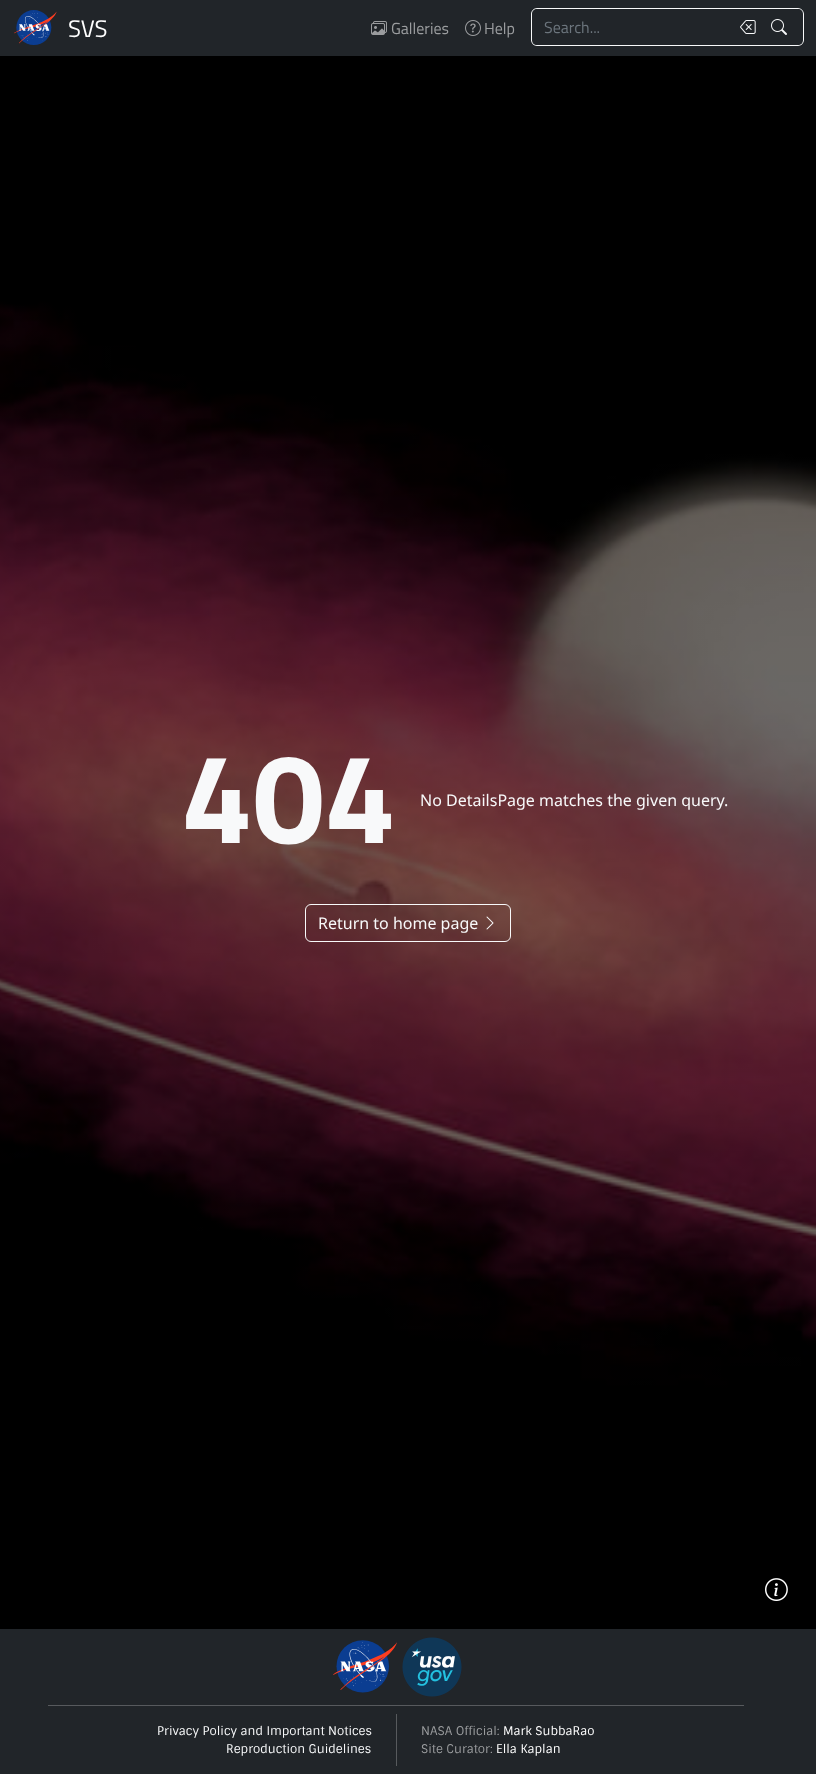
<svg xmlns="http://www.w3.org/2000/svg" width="816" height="1774">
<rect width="100%" height="100%" fill="#fff"/>
<rect width="816" height="56" fill="#212529"/>
<image x="14" y="10" width="43" height="35" href="media/1.png"/>
<text x="68" y="37" style="font-family:Titillium Web;font-size:24px;fill:#fff">SVS</text>
<image x="371" y="21" width="16" height="14" href="media/2.png"/>
<text x="391" y="34" style="font-family:Titillium Web;font-size:16px;fill:#9b9d9f">Galleries</text>
<image x="465" y="20" width="16" height="16" href="media/3.png"/>
<text x="484" y="34" style="font-family:Titillium Web;font-size:16px;fill:#9b9d9f">Help</text>
<path d="M537 8h192v38h-192c-3 0-6-3-6-6v-26c0-3 3-6 6-6zm0 1h192v36h-192c-3 0-5-2-5-5v-26c0-3 2-5 5-5z" fill="#f8f9fa" fill-rule="evenodd"/>
<text x="544" y="33" style="font-family:Titillium Web;font-size:16px;fill:#6c757d">Search...</text>
<rect x="728" y="8" width="32" height="1" fill="#f8f9fa"/>
<rect x="728" y="45" width="32" height="1" fill="#f8f9fa"/>
<image x="740" y="20" width="16" height="14" href="media/4.png"/>
<path d="M759 8h39c3.5 0 6 2.5 6 6v26c0 3.5-2.5 6-6 6h-39z" fill="#212529"/>
<path d="M759 8h39c3 0 6 3 6 6v26c0 3-3 6-6 6h-39zm0 1h39c3 0 5 2 5 5v26c0 3-2 5-5 5h-39z" fill="#f8f9fa" fill-rule="evenodd"/>
<image x="771" y="19" width="16" height="16" href="media/5.png"/>
<image x="0" y="56" width="816" height="1573" href="media/6.png"/>
<text x="181" y="843" style="font-family:Titillium Web;font-size:128px;font-weight:bold;fill:#f8f9fa">404</text>
<text x="420" y="806" style="font-family:Noto Sans;font-size:16px;fill:#f8f9fa">No DetailsPage matches the given query.</text>
<rect x="305.5" y="904.5" width="205" height="37" rx="5.5" fill="none" stroke="#f8f9fa"/>
<text x="318" y="929" style="font-family:Noto Sans;font-size:16px;fill:#f8f9fa">Return to home page</text>
<image x="486" y="916" width="8" height="14" href="media/7.png"/>
<image x="765" y="1578" width="23" height="23" href="media/8.png"/>
<rect y="1629" width="816" height="145" fill="#212529"/>
<image x="333" y="1640" width="64" height="53" href="media/9.png"/>
<image x="402" y="1637" width="60" height="60" href="media/10.png"/>
<rect x="48" y="1705" width="696" height="1" fill="#575a5d"/>
<text x="157" y="1735" style="font-family:Sintony;font-size:12px;fill:#f8f9fa">Privacy Policy and Important Notices</text>
<text x="226" y="1753" style="font-family:Sintony;font-size:12px;fill:#f8f9fa">Reproduction Guidelines</text>
<rect x="396" y="1714" width="1" height="52" fill="#575a5d"/>
<text x="421" y="1735" style="font-family:Sintony;font-size:12px;fill:#9b9d9f">NASA Official:</text>
<text x="503" y="1735" style="font-family:Sintony;font-size:12px;fill:#fff">Mark SubbaRao</text>
<text x="421" y="1753" style="font-family:Sintony;font-size:12px;fill:#9b9d9f">Site Curator:</text>
<text x="496" y="1753" style="font-family:Sintony;font-size:12px;fill:#fff">Ella Kaplan</text>
</svg>
